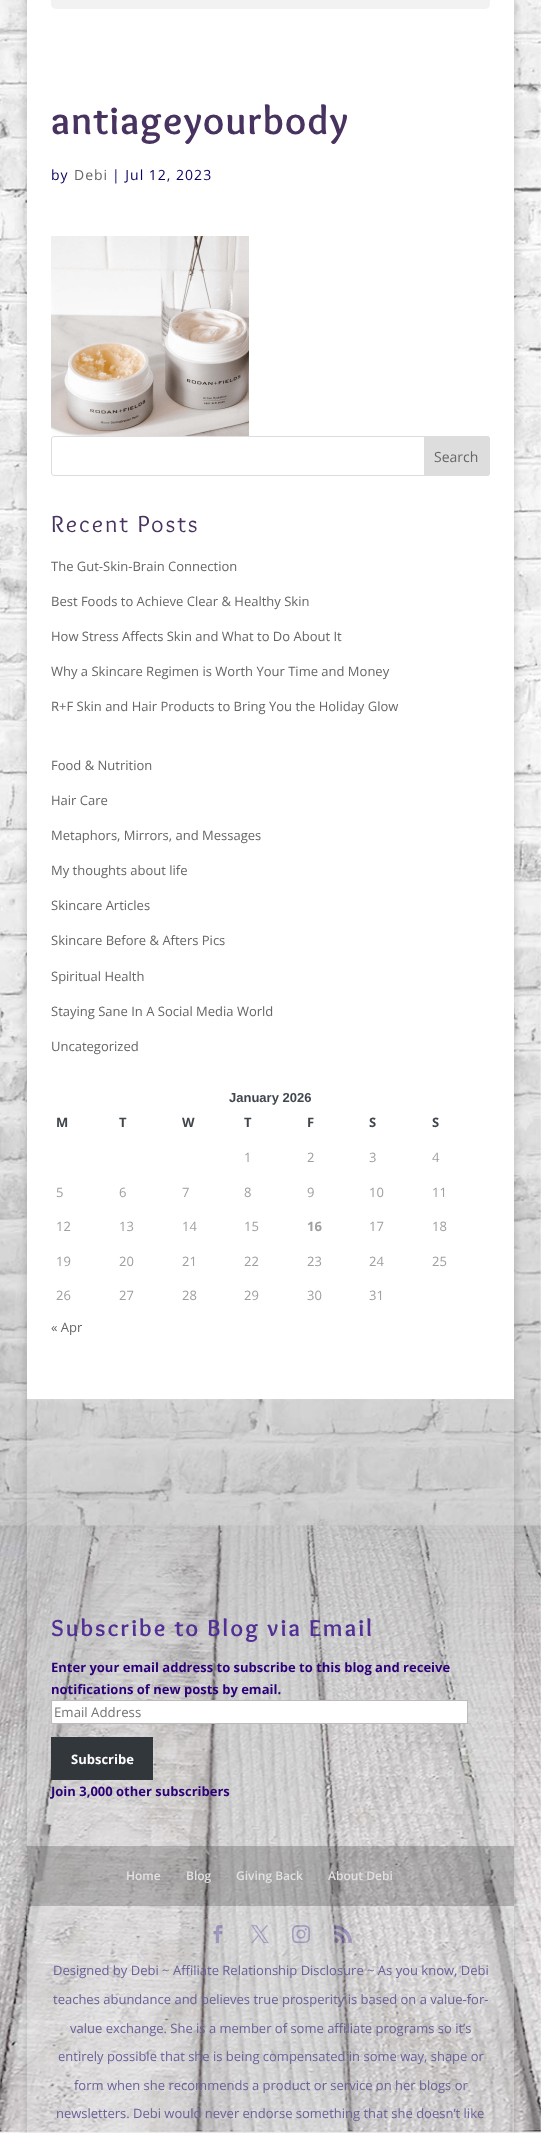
<svg xmlns="http://www.w3.org/2000/svg" width="541" height="2133">
<defs>
<clipPath id="clip1"><path d="M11 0h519v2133h-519zm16-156h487v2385h-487z" clip-rule="evenodd"/></clipPath>
</defs>
<rect width="100%" height="100%" fill="#fff"/>
<image x="0" y="0" width="541" height="2133" href="media/1.png"/>
<g clip-path="url(#clip1)">
<rect x="27" y="-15" width="487" height="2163" fill="#00000033" filter="blur(5px)"/>
</g>
<rect x="27" width="487" height="1399" fill="#fff"/>
<rect x="51" y="-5" width="439" height="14" rx="5" fill="#f2f2f2"/>
<text x="51" y="134" style="font-family:Overlock;font-size:40px;font-weight:bold;letter-spacing:1px;fill:#483260">antiageyourbody</text>
<text x="51" y="180" style="font-family:Open Sans;font-size:14px;letter-spacing:1px;fill:#080063">by</text>
<text x="74" y="180" style="font-family:Open Sans;font-size:14px;letter-spacing:1px;fill:#666">Debi</text>
<text x="112" y="180" style="font-family:Open Sans;font-size:14px;letter-spacing:1px;fill:#080063">| Jul 12, 2023</text>
<image x="51" y="236" width="198" height="200" href="media/2.png"/>
<rect x="51.5" y="436.5" width="438" height="39" rx="2.5" fill="none" stroke="#ddd"/>
<path d="M424.5 436.5h62.5c1.5 0 2.5 1 2.5 2.5v34c0 1.5-1 2.5-2.5 2.5h-62.5z" fill="#ddd" stroke="#ddd"/>
<text x="434" y="462" style="font-family:Open Sans;font-size:14px;fill:#666">Search</text>
<text x="51" y="532" style="font-family:Overlock;font-size:24px;letter-spacing:2px;fill:#483260">Recent Posts</text>
<text x="51" y="571" style="font-family:Open Sans;font-size:13px;fill:#666">The Gut-Skin-Brain Connection</text>
<text x="51" y="606" style="font-family:Open Sans;font-size:13px;fill:#666">Best Foods to Achieve Clear &amp; Healthy Skin</text>
<text x="51" y="641" style="font-family:Open Sans;font-size:13px;fill:#666">How Stress Affects Skin and What to Do About It</text>
<text x="51" y="676" style="font-family:Open Sans;font-size:13px;fill:#666">Why a Skincare Regimen is Worth Your Time and Money</text>
<text x="51" y="711" style="font-family:Open Sans;font-size:13px;fill:#666">R+F Skin and Hair Products to Bring You the Holiday Glow</text>
<text x="51" y="770" style="font-family:Open Sans;font-size:13px;fill:#666">Food &amp; Nutrition</text>
<text x="51" y="805" style="font-family:Open Sans;font-size:13px;fill:#666">Hair Care</text>
<text x="51" y="840" style="font-family:Open Sans;font-size:13px;fill:#666">Metaphors, Mirrors, and Messages</text>
<text x="51" y="875" style="font-family:Open Sans;font-size:13px;fill:#666">My thoughts about life</text>
<text x="51" y="910" style="font-family:Open Sans;font-size:13px;fill:#666">Skincare Articles</text>
<text x="51" y="945" style="font-family:Open Sans;font-size:13px;fill:#666">Skincare Before &amp; Afters Pics</text>
<text x="51" y="981" style="font-family:Open Sans;font-size:13px;fill:#666">Spiritual Health</text>
<text x="51" y="1016" style="font-family:Open Sans;font-size:13px;fill:#666">Staying Sane In A Social Media World</text>
<text x="51" y="1051" style="font-family:Open Sans;font-size:13px;fill:#666">Uncategorized</text>
<text x="229" y="1102" style="font-family:Liberation Sans;font-size:13px;font-weight:bold;fill:#40464d">January 2026</text>
<text x="56" y="1127" style="font-family:Open Sans;font-size:13px;font-weight:bold;fill:#40464d">M</text>
<text x="119" y="1127" style="font-family:Open Sans;font-size:13px;font-weight:bold;fill:#40464d">T</text>
<text x="182" y="1127" style="font-family:Open Sans;font-size:13px;font-weight:bold;fill:#40464d">W</text>
<text x="244" y="1127" style="font-family:Open Sans;font-size:13px;font-weight:bold;fill:#40464d">T</text>
<text x="307" y="1127" style="font-family:Open Sans;font-size:13px;font-weight:bold;fill:#40464d">F</text>
<text x="369" y="1127" style="font-family:Open Sans;font-size:13px;font-weight:bold;fill:#40464d">S</text>
<text x="432" y="1127" style="font-family:Open Sans;font-size:13px;font-weight:bold;fill:#40464d">S</text>
<text x="244" y="1162" style="font-family:Open Sans;font-size:13px;fill:#9f9f9f">1</text>
<text x="307" y="1162" style="font-family:Open Sans;font-size:13px;fill:#9f9f9f">2</text>
<text x="369" y="1162" style="font-family:Open Sans;font-size:13px;fill:#9f9f9f">3</text>
<text x="432" y="1162" style="font-family:Open Sans;font-size:13px;fill:#9f9f9f">4</text>
<text x="56" y="1197" style="font-family:Open Sans;font-size:13px;fill:#9f9f9f">5</text>
<text x="119" y="1197" style="font-family:Open Sans;font-size:13px;fill:#9f9f9f">6</text>
<text x="182" y="1197" style="font-family:Open Sans;font-size:13px;fill:#9f9f9f">7</text>
<text x="244" y="1197" style="font-family:Open Sans;font-size:13px;fill:#9f9f9f">8</text>
<text x="307" y="1197" style="font-family:Open Sans;font-size:13px;fill:#9f9f9f">9</text>
<text x="369" y="1197" style="font-family:Open Sans;font-size:13px;fill:#9f9f9f">10</text>
<text x="432" y="1197" style="font-family:Open Sans;font-size:13px;fill:#9f9f9f">11</text>
<text x="56" y="1231" style="font-family:Open Sans;font-size:13px;fill:#9f9f9f">12</text>
<text x="119" y="1231" style="font-family:Open Sans;font-size:13px;fill:#9f9f9f">13</text>
<text x="182" y="1231" style="font-family:Open Sans;font-size:13px;fill:#9f9f9f">14</text>
<text x="244" y="1231" style="font-family:Open Sans;font-size:13px;fill:#9f9f9f">15</text>
<text x="307" y="1231" style="font-family:Open Sans;font-size:13px;font-weight:bold;fill:#9f9f9f">16</text>
<text x="369" y="1231" style="font-family:Open Sans;font-size:13px;fill:#9f9f9f">17</text>
<text x="432" y="1231" style="font-family:Open Sans;font-size:13px;fill:#9f9f9f">18</text>
<text x="56" y="1266" style="font-family:Open Sans;font-size:13px;fill:#9f9f9f">19</text>
<text x="119" y="1266" style="font-family:Open Sans;font-size:13px;fill:#9f9f9f">20</text>
<text x="182" y="1266" style="font-family:Open Sans;font-size:13px;fill:#9f9f9f">21</text>
<text x="244" y="1266" style="font-family:Open Sans;font-size:13px;fill:#9f9f9f">22</text>
<text x="307" y="1266" style="font-family:Open Sans;font-size:13px;fill:#9f9f9f">23</text>
<text x="369" y="1266" style="font-family:Open Sans;font-size:13px;fill:#9f9f9f">24</text>
<text x="432" y="1266" style="font-family:Open Sans;font-size:13px;fill:#9f9f9f">25</text>
<text x="56" y="1300" style="font-family:Open Sans;font-size:13px;fill:#9f9f9f">26</text>
<text x="119" y="1300" style="font-family:Open Sans;font-size:13px;fill:#9f9f9f">27</text>
<text x="182" y="1300" style="font-family:Open Sans;font-size:13px;fill:#9f9f9f">28</text>
<text x="244" y="1300" style="font-family:Open Sans;font-size:13px;fill:#9f9f9f">29</text>
<text x="307" y="1300" style="font-family:Open Sans;font-size:13px;fill:#9f9f9f">30</text>
<text x="369" y="1300" style="font-family:Open Sans;font-size:13px;fill:#9f9f9f">31</text>
<text x="51" y="1332" style="font-family:Open Sans;font-size:13px;fill:#666">« Apr</text>
<rect x="27" y="1399" width="487" height="734" fill="#d8d8d85e"/>
<text x="51" y="1636" style="font-family:Overlock;font-size:24px;font-weight:bold;letter-spacing:2px;fill:#512f94">Subscribe to Blog via Email</text>
<text x="51" y="1672" style="font-family:Open Sans;font-size:13px;font-weight:bold;fill:#2b0077">Enter your email address to subscribe to this blog and receive</text>
<text x="51" y="1694" style="font-family:Open Sans;font-size:13px;font-weight:bold;fill:#2b0077">notifications of new posts by email.</text>
<rect x="51.5" y="1700.5" width="416" height="23" fill="#fff" stroke="#bbb"/>
<text x="54" y="1717" style="font-family:Open Sans;font-size:13.25px;fill:#757575">Email Address</text>
<rect x="51" y="1737" width="102" height="43" fill="#32373c"/>
<text x="71" y="1764" style="font-family:Open Sans;font-size:13px;font-weight:bold;fill:#fff">Subscribe</text>
<text x="51" y="1796" style="font-family:Open Sans;font-size:13px;font-weight:bold;fill:#2b0077">Join 3,000 other subscribers</text>
<rect x="27" y="1846" width="487" height="60" fill="#00000033"/>
<text x="126" y="1880" style="font-family:Open Sans;font-size:12px;font-weight:600;fill:#e2e2e2">Home</text>
<text x="186" y="1880" style="font-family:Open Sans;font-size:12px;font-weight:600;fill:#e2e2e2">Blog</text>
<text x="236" y="1880" style="font-family:Open Sans;font-size:12px;font-weight:600;fill:#e2e2e2">Giving Back</text>
<text x="328" y="1880" style="font-family:Open Sans;font-size:12px;font-weight:600;fill:#e2e2e2">About Debi</text>
<image x="213" y="1925" width="10" height="19" href="media/3.png"/>
<image x="251" y="1925" width="18" height="19" href="media/4.png"/>
<image x="292" y="1925" width="18" height="19" href="media/5.png"/>
<image x="334" y="1925" width="18" height="19" href="media/6.png"/>
<text x="53" y="1975" style="font-family:Open Sans;font-size:13px;fill:#6a6299">Designed by Debi ~</text>
<text x="173" y="1975" style="font-family:Open Sans;font-size:13px;fill:#6a6299">Affiliate Relationship Disclosure ~ As you know, Debi</text>
<text x="53" y="2004" style="font-family:Open Sans;font-size:13px;fill:#6a6299">teaches abundance and believes true prosperity is based on a value-for-</text>
<text x="70" y="2033" style="font-family:Open Sans;font-size:13px;fill:#6a6299">value exchange. She is a member of some affiliate programs so it’s</text>
<text x="58" y="2061" style="font-family:Open Sans;font-size:13px;fill:#6a6299">entirely possible that she is being compensated in some way, shape or</text>
<text x="74" y="2090" style="font-family:Open Sans;font-size:13px;fill:#6a6299">form when she recommends a product or service on her blogs or</text>
<text x="56" y="2118" style="font-family:Open Sans;font-size:13px;fill:#6a6299">newsletters. Debi would never endorse something that she doesn’t like</text>
</svg>
